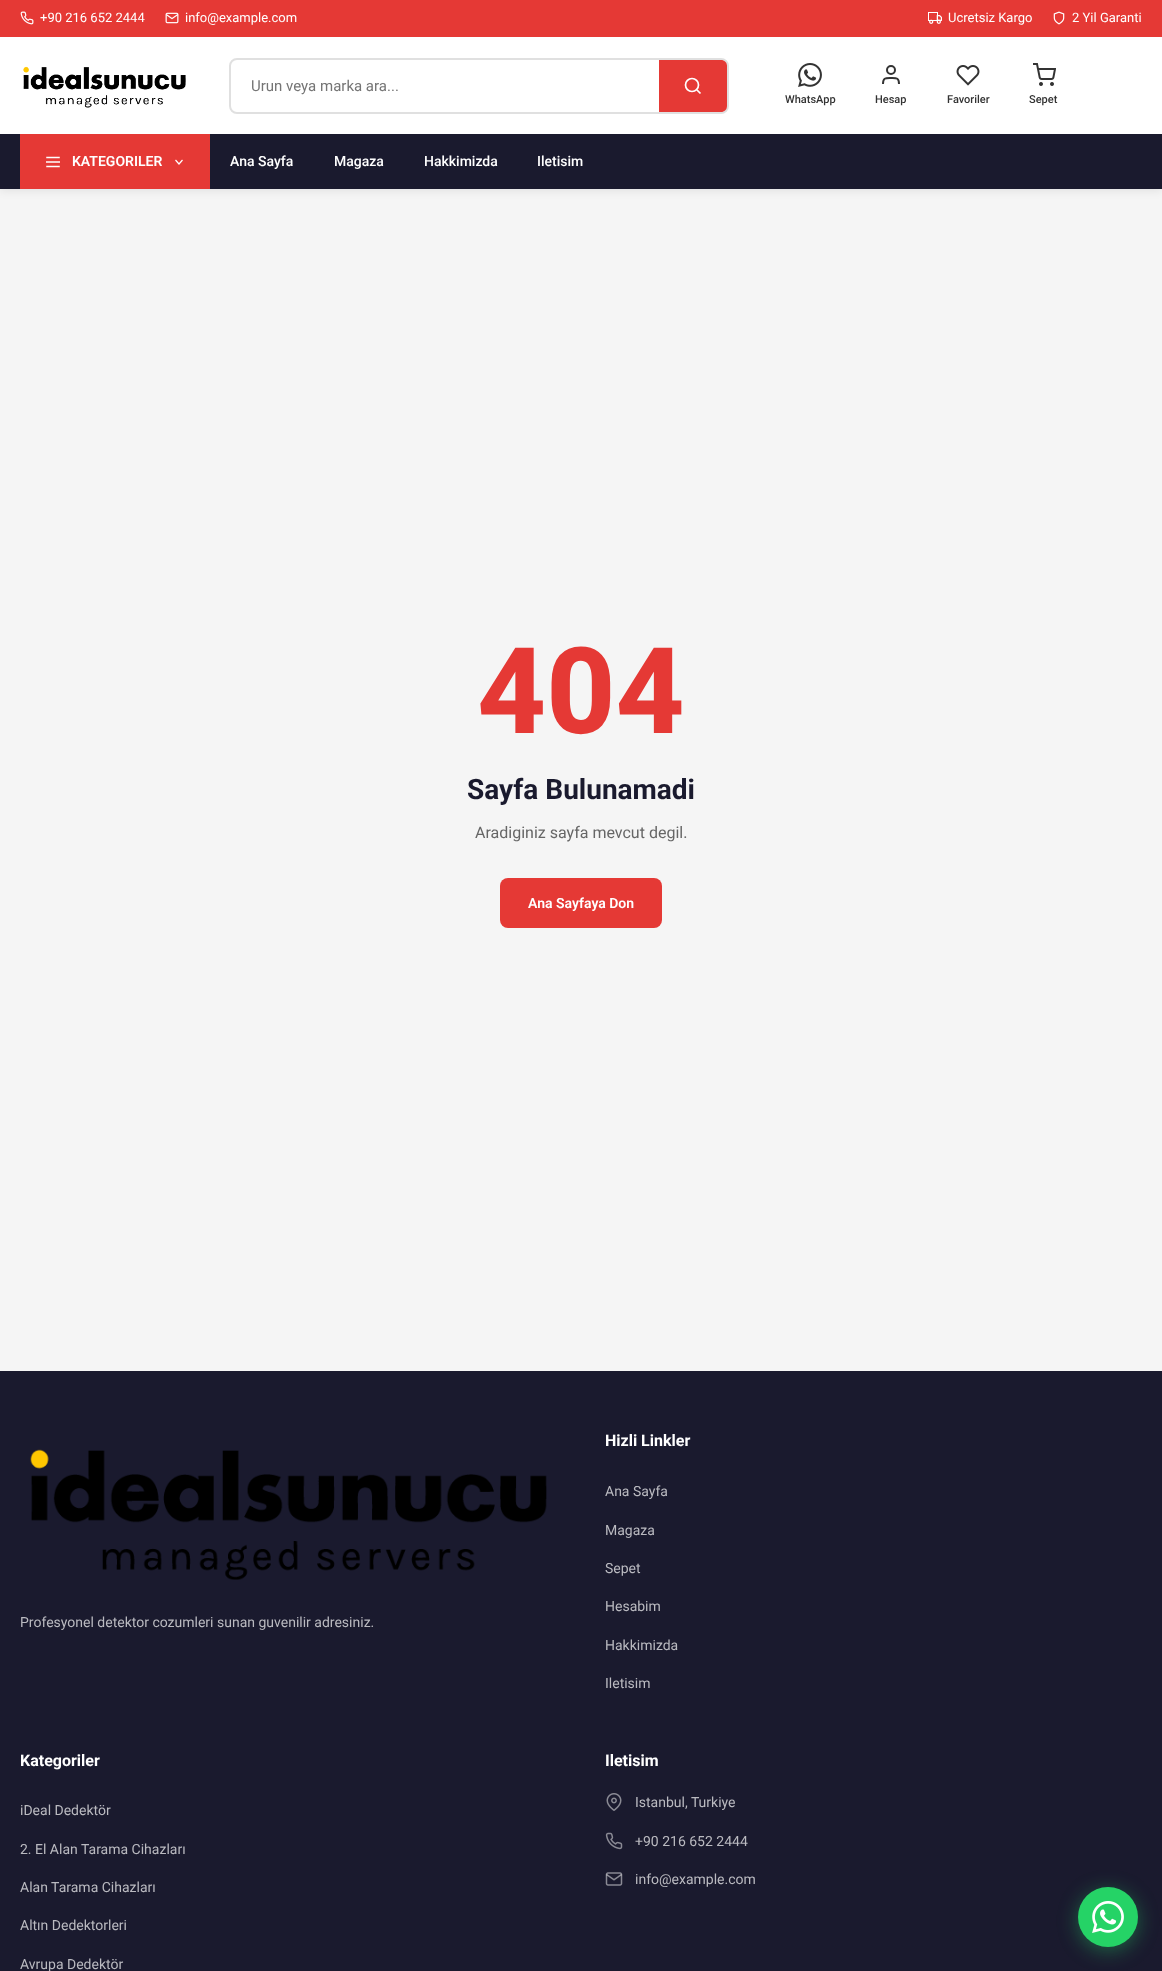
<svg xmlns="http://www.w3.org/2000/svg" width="1162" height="1971">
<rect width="100%" height="100%" fill="#f5f5f5"/>
<rect y="2" width="1162" height="189" fill="#00000014" filter="blur(4px)"/>
<rect y="37" width="1162" height="97" fill="#fff"/>
<rect width="1162" height="37" fill="#e53935"/>
<image x="20" y="11" width="14" height="14" href="media/1.png"/>
<text x="40" y="22" style="font-family:Roboto;font-size:13px;fill:#fff">+90 216 652 2444</text>
<image x="165" y="12" width="14" height="12" href="media/2.png"/>
<text x="185" y="22" style="font-family:Roboto;font-size:13px;fill:#fff">info@example.com</text>
<image x="928" y="12" width="14" height="12" href="media/3.png"/>
<text x="948" y="22" style="font-family:Roboto;font-size:13px;fill:#fff">Ucretsiz Kargo</text>
<image x="1053" y="11" width="12" height="14" href="media/4.png"/>
<text x="1072" y="22" style="font-family:Roboto;font-size:13px;fill:#fff">2 Yil Garanti</text>
<image x="23" y="66" width="163" height="42" href="media/5.png"/>
<rect x="230" y="59" width="498" height="54" rx="7" fill="none" stroke="#e0e0e0" stroke-width="2"/>
<text x="251" y="91" style="font-family:Roboto;font-size:15px;fill:#757575">Urun veya marka ara...</text>
<path d="M659 60h62c3.5 0 6 2.5 6 6v40c0 3.5-2.5 6-6 6h-62z" fill="#e53935"/>
<circle cx="692" cy="85" r="6.5" fill="none" stroke="#fff" stroke-width="1.7"/>
<path d="M700.5 93.5l-3.5-3.5" fill="none" stroke="#fff" stroke-width="1.7"/>
<image x="798" y="63" width="24" height="24" href="media/6.png"/>
<text x="785" y="103" style="font-family:Roboto;font-size:11px;font-weight:500;fill:#333">WhatsApp</text>
<path d="M899 84c0-6.5-2.5-6-8-6c-5.5 0-8-.5-8 6" fill="none" stroke="#333" stroke-width="2"/>
<circle cx="891" cy="70" r="4" fill="none" stroke="#333" stroke-width="2"/>
<text x="875" y="103" style="font-family:Roboto;font-size:11px;font-weight:500;fill:#333">Hesap</text>
<image x="956" y="65" width="24" height="21" href="media/7.png"/>
<text x="947" y="103" style="font-family:Roboto;font-size:11px;font-weight:500;fill:#333">Favoriler</text>
<image x="1033" y="63" width="23" height="23" href="media/8.png"/>
<text x="1029" y="103" style="font-family:Roboto;font-size:11px;font-weight:500;fill:#333">Sepet</text>
<rect y="134" width="1162" height="55" fill="#1a1a2e"/>
<rect x="20" y="134" width="190" height="55" fill="#e53935"/>
<image x="46" y="156" width="14" height="12" href="media/9.png"/>
<text x="72" y="166" style="font-family:Roboto;font-size:14px;font-weight:600;fill:#fff">KATEGORILER</text>
<path d="M175.5 160l3.5 4l3.5-4" fill="none" stroke="#fff" stroke-width="1.2"/>
<text x="230" y="166" style="font-family:Roboto;font-size:14px;font-weight:500;fill:#fff">Ana Sayfa</text>
<text x="334" y="166" style="font-family:Roboto;font-size:14px;font-weight:500;fill:#fff">Magaza</text>
<text x="424" y="166" style="font-family:Roboto;font-size:14px;font-weight:500;fill:#fff">Hakkimizda</text>
<text x="537" y="166" style="font-family:Roboto;font-size:14px;font-weight:500;fill:#fff">Iletisim</text>
<text x="477" y="733" style="font-family:Roboto;font-size:120px;font-weight:800;fill:#e53935">404</text>
<text x="467" y="799" style="font-family:Roboto;font-size:28px;font-weight:bold;fill:#1a1a2e">Sayfa Bulunamadi</text>
<text x="475" y="838" style="font-family:Roboto;font-size:16px;fill:#666">Aradiginiz sayfa mevcut degil.</text>
<rect x="500" y="878" width="162" height="50" rx="8" fill="#e53935"/>
<text x="528" y="908" style="font-family:Roboto;font-size:14px;font-weight:600;fill:#fff">Ana Sayfaya Don</text>
<rect y="1371" width="1162" height="600" fill="#1a1a2e"/>
<image x="30" y="1449" width="517" height="131" href="media/10.png"/>
<text x="20" y="1627" style="font-family:Roboto;font-size:14px;fill:#babac0">Profesyonel detektor cozumleri sunan guvenilir adresiniz.</text>
<text x="605" y="1446" style="font-family:Roboto;font-size:16px;font-weight:bold;fill:#fff">Hizli Linkler</text>
<text x="605" y="1496" style="font-family:Roboto;font-size:14px;fill:#babac0">Ana Sayfa</text>
<text x="605" y="1535" style="font-family:Roboto;font-size:14px;fill:#babac0">Magaza</text>
<text x="605" y="1573" style="font-family:Roboto;font-size:14px;fill:#babac0">Sepet</text>
<text x="605" y="1611" style="font-family:Roboto;font-size:14px;fill:#babac0">Hesabim</text>
<text x="605" y="1650" style="font-family:Roboto;font-size:14px;fill:#babac0">Hakkimizda</text>
<text x="605" y="1688" style="font-family:Roboto;font-size:14px;fill:#babac0">Iletisim</text>
<text x="20" y="1766" style="font-family:Roboto;font-size:16px;font-weight:bold;fill:#fff">Kategoriler</text>
<text x="20" y="1815" style="font-family:Roboto;font-size:14px;fill:#babac0">iDeal Dedektör</text>
<text x="20" y="1854" style="font-family:Roboto;font-size:14px;fill:#babac0">2. El Alan Tarama Cihazları</text>
<text x="20" y="1892" style="font-family:Roboto;font-size:14px;fill:#babac0">Alan Tarama Cihazları</text>
<text x="20" y="1930" style="font-family:Roboto;font-size:14px;fill:#babac0">Altın Dedektorleri</text>
<text x="20" y="1969" style="font-family:Roboto;font-size:14px;fill:#babac0">Avrupa Dedektör</text>
<text x="605" y="1766" style="font-family:Roboto;font-size:16px;font-weight:bold;fill:#fff">Iletisim</text>
<image x="606" y="1793" width="16" height="18" href="media/11.png"/>
<text x="635" y="1807" style="font-family:Roboto;font-size:14px;fill:#babac0">Istanbul, Turkiye</text>
<image x="605" y="1832" width="18" height="18" href="media/12.png"/>
<text x="635" y="1846" style="font-family:Roboto;font-size:14px;fill:#babac0">+90 216 652 2444</text>
<image x="605" y="1872" width="18" height="14" href="media/13.png"/>
<text x="635" y="1884" style="font-family:Roboto;font-size:14px;fill:#babac0">info@example.com</text>
<rect x="1078" y="1891" width="60" height="60" rx="30" fill="#25d36666" filter="blur(10px)"/>
<circle cx="1108" cy="1917" r="30" fill="#25d366"/>
<image x="1092" y="1901" width="32" height="32" href="media/14.png"/>
</svg>
